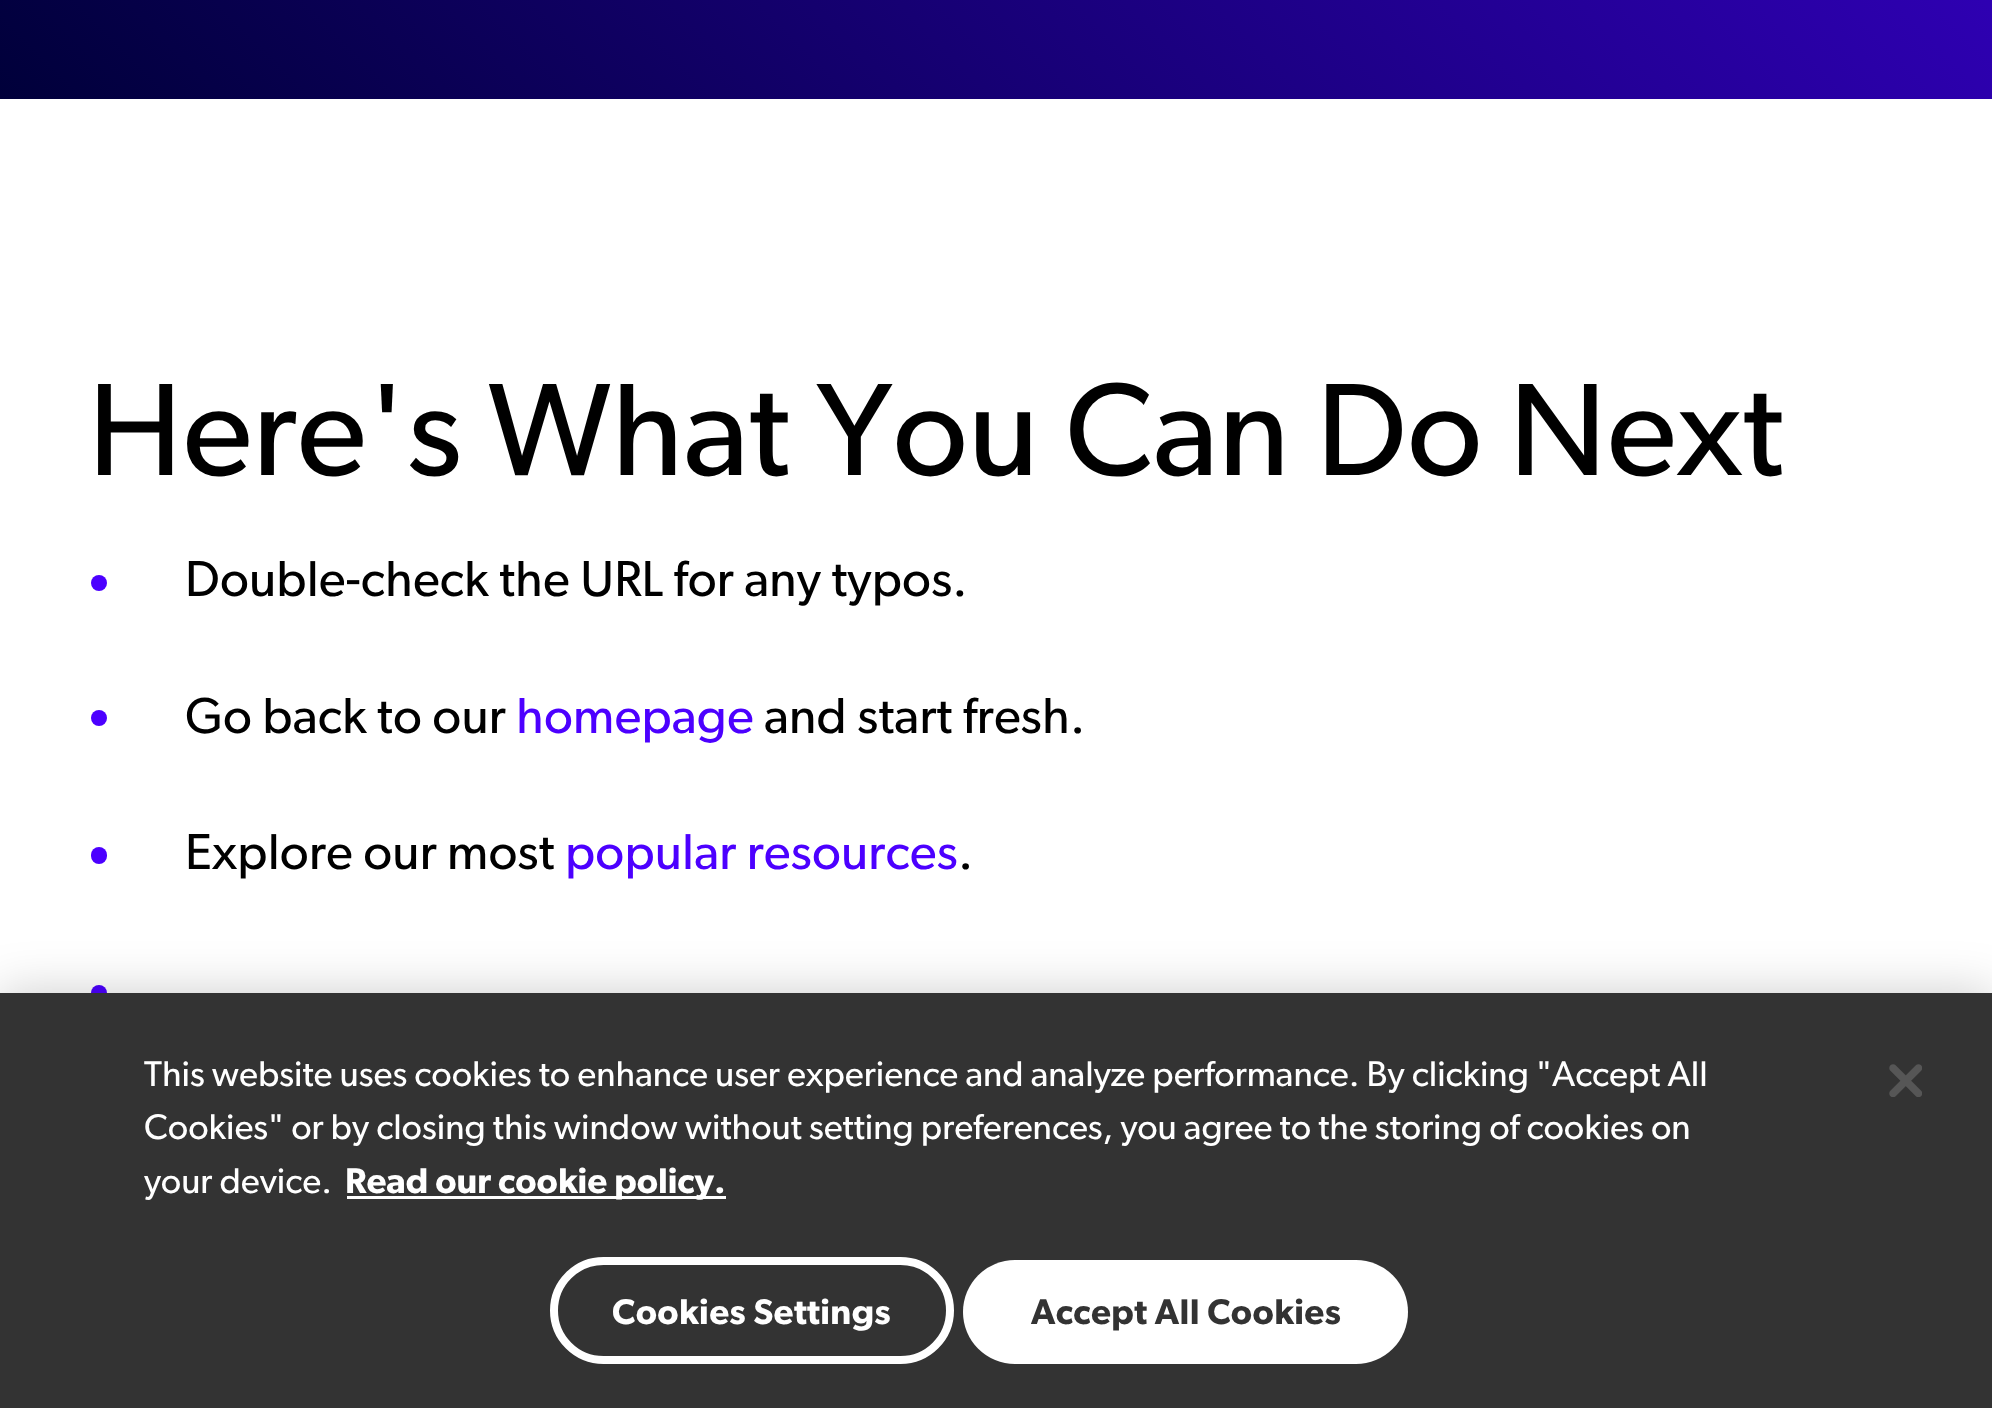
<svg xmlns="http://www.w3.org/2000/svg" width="1992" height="1408">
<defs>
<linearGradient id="g1" gradientUnits="userSpaceOnUse" x1="1858" y1="-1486" x2="136" y2="235"><stop offset="0" stop-color="#4c00ff"/><stop offset="1" stop-color="#00003a"/></linearGradient>
</defs>
<rect width="100%" height="100%" fill="#fff"/>
<rect width="1992" height="99" fill="url(#g1)"/>
<text x="88" y="475" style="font-family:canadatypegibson;font-size:132px;letter-spacing:0.2px;fill:#000">Here's What You Can Do Next</text>
<circle cx="99" cy="583" r="8" fill="#4c00ff"/>
<text x="185" y="596" style="font-family:canadatypegibson;font-size:50.6px;letter-spacing:0.2px;fill:#000">Double-check the URL for any typos.</text>
<circle cx="99" cy="718" r="8" fill="#4c00ff"/>
<text x="185" y="733" style="font-family:canadatypegibson;font-size:50.6px;letter-spacing:0.2px;fill:#000">Go back to our</text>
<text x="516" y="733" style="font-family:canadatypegibson;font-size:50.6px;letter-spacing:0.2px;fill:#4c00ff">homepage</text>
<text x="764" y="733" style="font-family:canadatypegibson;font-size:50.6px;letter-spacing:0.2px;fill:#000">and start fresh.</text>
<rect x="91" y="847" width="16" height="17" rx="8" fill="#4c00ff"/>
<text x="185" y="869" style="font-family:canadatypegibson;font-size:50.6px;letter-spacing:0.2px;fill:#000">Explore our most</text>
<text x="565" y="869" style="font-family:canadatypegibson;font-size:50.6px;letter-spacing:0.2px;fill:#4c00ff">popular resources</text>
<text x="958" y="869" style="font-family:canadatypegibson;font-size:50.6px;letter-spacing:0.2px;fill:#000">.</text>
<circle cx="99" cy="993" r="8" fill="#4c00ff"/>
<rect y="993" width="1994" height="415" fill="#00000033" filter="blur(25px)"/>
<rect y="993" width="1992" height="415" fill="#333"/>
<text x="144" y="1086" style="font-family:canadatypegibson;font-size:35.75px;fill:#fff">This website uses cookies to enhance user experience and analyze performance. By clicking "Accept All</text>
<text x="144" y="1139" style="font-family:canadatypegibson;font-size:35.75px;fill:#fff">Cookies" or by closing this window without setting preferences, you agree to the storing of cookies on</text>
<text x="144" y="1193" style="font-family:canadatypegibson;font-size:35.75px;fill:#fff">your device.</text>
<rect x="347" y="1196" width="379" height="3" fill="#fff"/>
<text x="345" y="1193" style="font-family:canadatypegibson;font-size:35.75px;font-weight:600;fill:#fff">Read our cookie policy.</text>
<rect x="554" y="1261" width="396" height="99" rx="49.5" fill="none" stroke="#fff" stroke-width="8"/>
<text x="612" y="1324" style="font-family:canadatypegibson;font-size:35.75px;font-weight:600;letter-spacing:0.4px;fill:#fff">Cookies Settings</text>
<rect x="963" y="1260" width="445" height="104" rx="52" fill="#fff"/>
<text x="1031" y="1324" style="font-family:canadatypegibson;font-size:35.75px;font-weight:600;letter-spacing:0.4px;fill:#333">Accept All Cookies</text>
<image x="1889" y="1064" width="33" height="33" href="media/1.png"/>
</svg>
